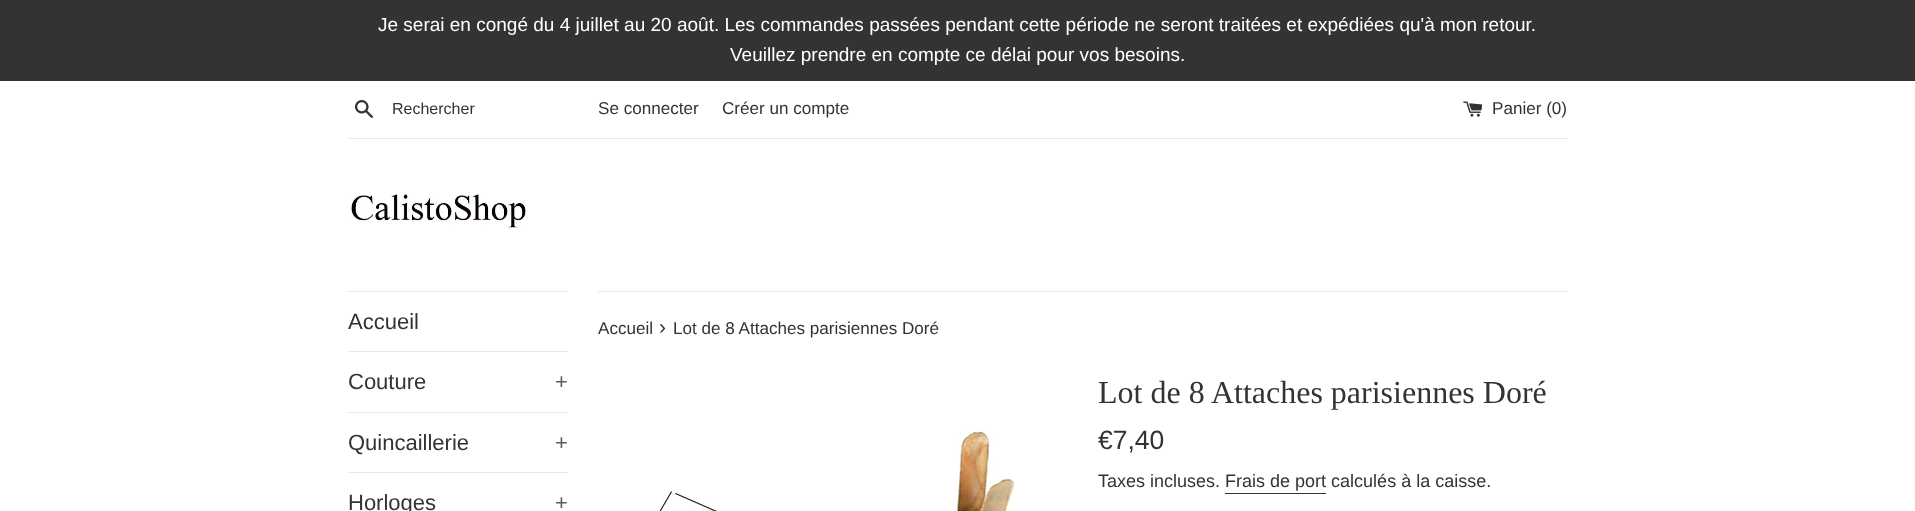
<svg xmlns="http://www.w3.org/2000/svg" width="1915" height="511">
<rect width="100%" height="100%" fill="#fff"/>
<rect width="1915" height="81" fill="#333"/>
<text x="378" y="31" style="font-family:Liberation Sans;font-size:19px;fill:#fff">Je serai en congé du 4 juillet au 20 août. Les commandes passées pendant cette période ne seront traitées et expédiées qu'à mon retour.</text>
<text x="730" y="61" style="font-family:Liberation Sans;font-size:19px;fill:#fff">Veuillez prendre en compte ce délai pour vos besoins.</text>
<image x="355" y="100" width="18" height="18" href="media/1.png"/>
<text x="392" y="114" style="font-family:Liberation Sans;font-size:16px;fill:#333">Rechercher</text>
<text x="598" y="114" style="font-family:Liberation Sans;font-size:17.1px;fill:#333">Se connecter</text>
<text x="722" y="114" style="font-family:Liberation Sans;font-size:17.1px;fill:#333">Créer un compte</text>
<image x="1463" y="101" width="20" height="16" href="media/2.png"/>
<text x="1492" y="114" style="font-family:Liberation Sans;font-size:17.1px;fill:#333">Panier (0)</text>
<rect x="348" y="138" width="1220" height="1" fill="#e8e8e8"/>
<image x="350" y="194" width="176" height="34" href="media/3.png"/>
<rect x="348" y="291" width="220" height="1" fill="#e8e8e8"/>
<rect x="348" y="351" width="220" height="1" fill="#e8e8e8"/>
<text x="348" y="329" style="font-family:Liberation Sans;font-size:22px;fill:#333">Accueil</text>
<rect x="348" y="412" width="220" height="1" fill="#e8e8e8"/>
<text x="348" y="389" style="font-family:Liberation Sans;font-size:22px;fill:#333">Couture</text>
<text x="555" y="389" style="font-family:Liberation Sans;font-size:22px;fill:#5c5c5c">+</text>
<rect x="348" y="472" width="220" height="1" fill="#e8e8e8"/>
<text x="348" y="450" style="font-family:Liberation Sans;font-size:22px;fill:#333">Quincaillerie</text>
<text x="555" y="450" style="font-family:Liberation Sans;font-size:22px;fill:#5c5c5c">+</text>
<text x="348" y="510" style="font-family:Liberation Sans;font-size:22px;fill:#333">Horloges</text>
<text x="555" y="510" style="font-family:Liberation Sans;font-size:22px;fill:#5c5c5c">+</text>
<rect x="598" y="291" width="970" height="1" fill="#e8e8e8"/>
<text x="598" y="334" style="font-family:Liberation Sans;font-size:17.1px;fill:#333">Accueil</text>
<text x="659" y="334" style="font-family:Liberation Sans;font-size:21px;fill:#333">›</text>
<text x="673" y="334" style="font-family:Liberation Sans;font-size:17.1px;fill:#333">Lot de 8 Attaches parisiennes Doré</text>
<image x="659" y="427" width="356" height="84" href="media/4.png"/>
<text x="1098" y="403" style="font-family:Liberation Serif;font-size:32px;fill:#333">Lot de 8 Attaches parisiennes Doré</text>
<text x="1098" y="449" style="font-family:Liberation Sans;font-size:26.5px;fill:#333">€7,40</text>
<text x="1098" y="487" style="font-family:Liberation Sans;font-size:18px;fill:#333">Taxes incluses. Frais de port calculés à la caisse.</text>
<rect x="1225" y="493" width="101" height="1" fill="#333"/>
</svg>
